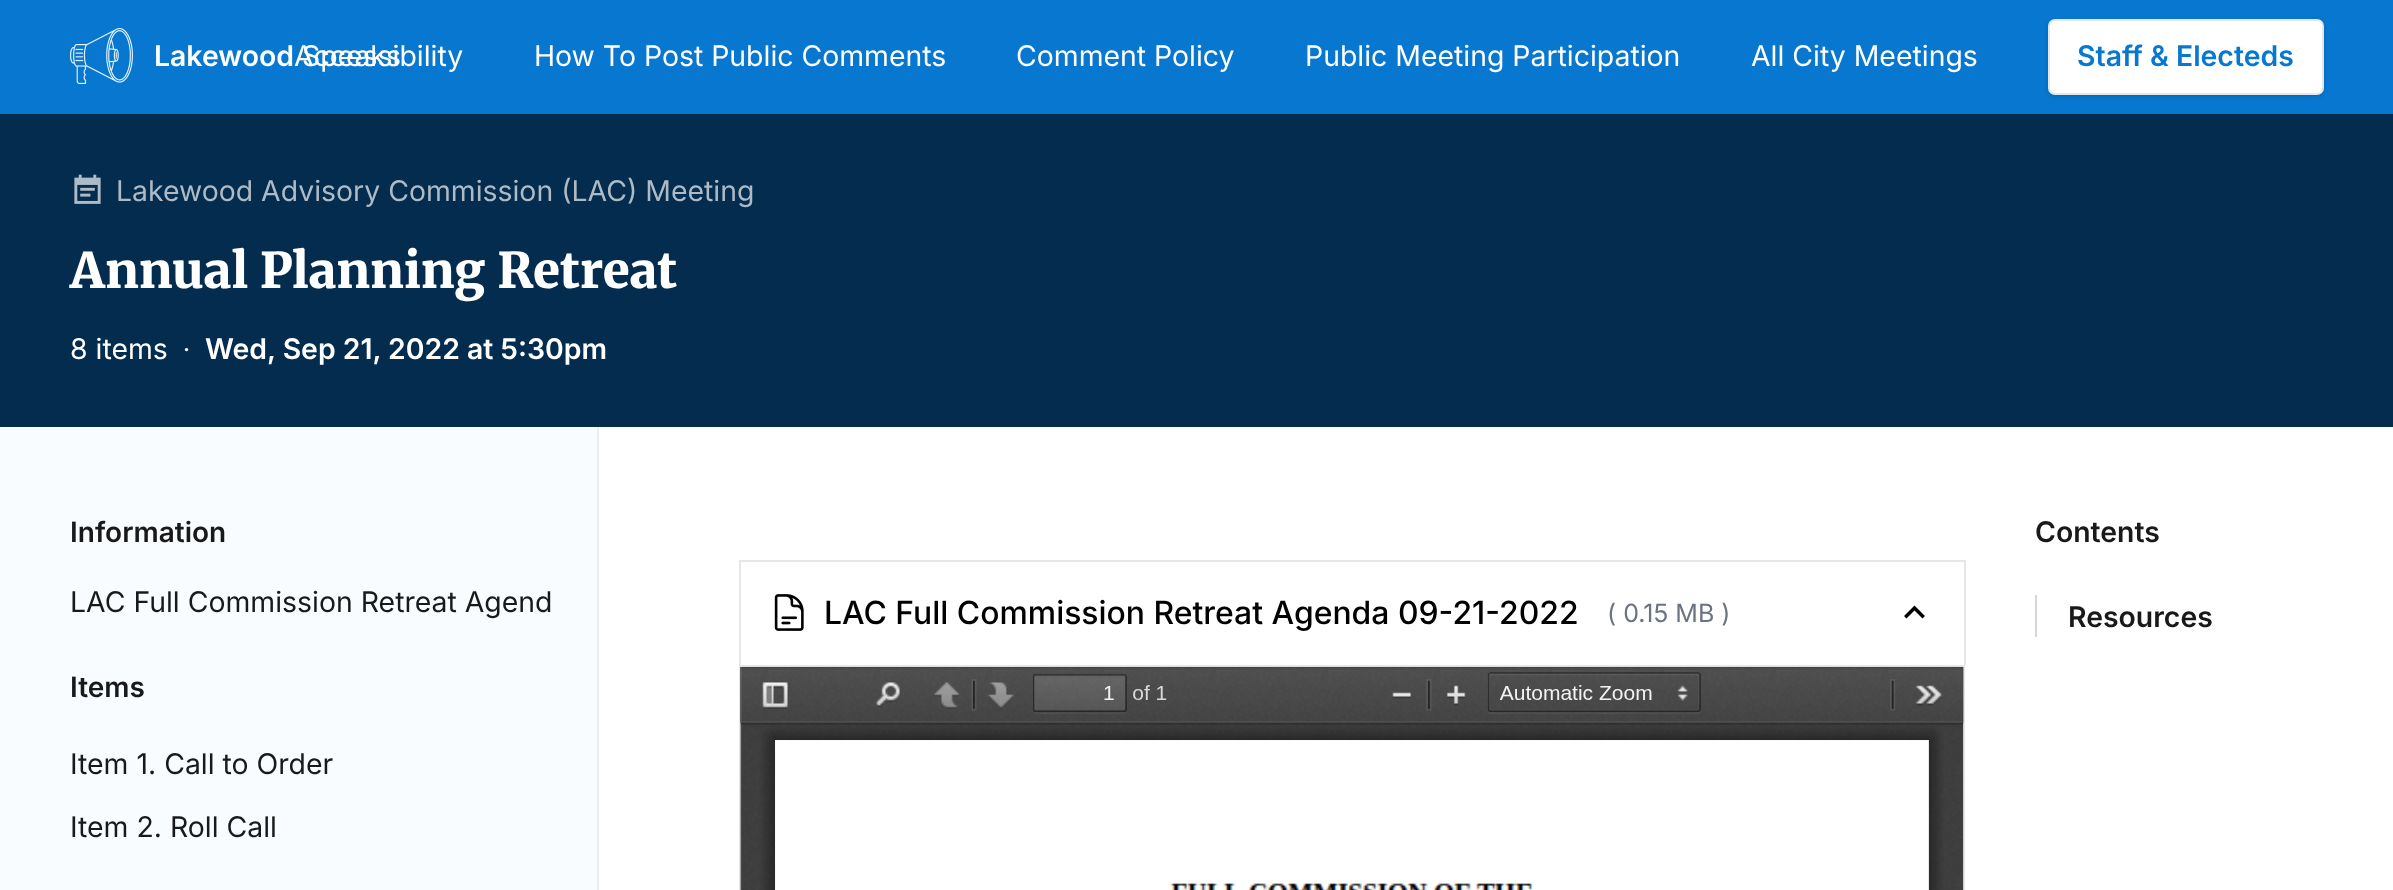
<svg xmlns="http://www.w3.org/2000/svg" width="2393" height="890">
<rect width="100%" height="100%" fill="#fff"/>
<rect width="2393" height="114" fill="#0777d0"/>
<image x="70" y="28" width="63" height="56" href="media/1.png"/>
<text x="154" y="66" style="font-family:Inter;font-size:28.4px;font-weight:600;fill:#fff">Lakewood</text>
<text x="302" y="66" style="font-family:Inter;font-size:28.4px;fill:#fff">Speaks</text>
<text x="294" y="66" style="font-family:Inter;font-size:28.4px;fill:#fff">Accessibility</text>
<text x="534" y="66" style="font-family:Inter;font-size:28.4px;fill:#fff">How To Post Public Comments</text>
<text x="1016" y="66" style="font-family:Inter;font-size:28.4px;fill:#fff">Comment Policy</text>
<text x="1305" y="66" style="font-family:Inter;font-size:28.4px;fill:#fff">Public Meeting Participation</text>
<text x="1751" y="66" style="font-family:Inter;font-size:28.4px;fill:#fff">All City Meetings</text>
<rect x="2049" y="23" width="273" height="72" rx="5" fill="#0000001a" filter="blur(2px)"/>
<rect x="2048" y="21" width="276" height="75" rx="7" fill="#0000001a" filter="blur(2.5px)"/>
<rect x="2049" y="20" width="274" height="74" rx="6" fill="#fff" stroke="#e5e7eb" stroke-width="2"/>
<text x="2077" y="66" style="font-family:Inter;font-size:28.4px;font-weight:600;fill:#0777d0">Staff &amp; Electeds</text>
<rect y="114" width="2393" height="313" fill="#032c4e"/>
<image x="74" y="174" width="27" height="30" href="media/2.png"/>
<text x="116" y="201" style="font-family:Inter;font-size:28.4px;fill:#aebbc6">Lakewood Advisory Commission (LAC) Meeting</text>
<text x="70" y="288" style="font-family:Merriweather;font-size:49px;font-weight:300;fill:#fff">Annual Planning Retreat</text>
<text x="70" y="359" style="font-family:Inter;font-size:28.4px;fill:#fff">8 items</text>
<text x="183" y="359" style="font-family:Liberation Serif;font-size:28.4px;fill:#fff">∙</text>
<text x="205" y="359" style="font-family:Inter;font-size:28.4px;font-weight:600;fill:#fff">Wed, Sep 21, 2022 at 5:30pm</text>
<rect x="597" y="427" width="2" height="463" fill="#ededed"/>
<rect y="427" width="597" height="463" fill="#f8fcfe"/>
<text x="70" y="542" style="font-family:Inter;font-size:28px;font-weight:600;fill:#191919">Information</text>
<text x="70" y="612" style="font-family:Inter;font-size:28.4px;fill:#191919">LAC Full Commission Retreat Agend</text>
<text x="70" y="697" style="font-family:Inter;font-size:28px;font-weight:600;fill:#191919">Items</text>
<text x="70" y="774" style="font-family:Inter;font-size:28.4px;fill:#191919">Item 1. Call to Order</text>
<text x="70" y="837" style="font-family:Inter;font-size:28.4px;fill:#191919">Item 2. Roll Call</text>
<rect x="739" y="560" width="1226" height="2" fill="#e5e7eb"/>
<rect x="1964" y="560" width="2" height="105" fill="#e5e7eb"/>
<rect x="739" y="560" width="2" height="105" fill="#e5e7eb"/>
<image x="774" y="594" width="30" height="37" href="media/3.png"/>
<text x="824" y="624" style="font-family:Inter;font-size:31.9px;font-weight:500;fill:#000">LAC Full Commission Retreat Agenda 09-21-2022</text>
<text x="1607" y="622" style="font-family:Inter;font-size:25px;fill:#6b7280">( 0.15 MB )</text>
<path d="M1906.5 618.5l8-8l8 8l2.5-2.5l-10.5-10.5l-10.5 10.5z" fill="#000"/>
<rect x="740" y="666" width="1224" height="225" fill="none" stroke="#e5e7eb" stroke-width="2"/>
<image x="740" y="666" width="1224" height="224" href="media/4.png"/>
<text x="2035" y="542" style="font-family:Inter;font-size:28.4px;font-weight:600;fill:#191919">Contents</text>
<rect x="2035" y="595" width="2" height="42" fill="#d6d6d6"/>
<text x="2068" y="627" style="font-family:Inter;font-size:28.4px;font-weight:600;fill:#191919">Resources</text>
</svg>
